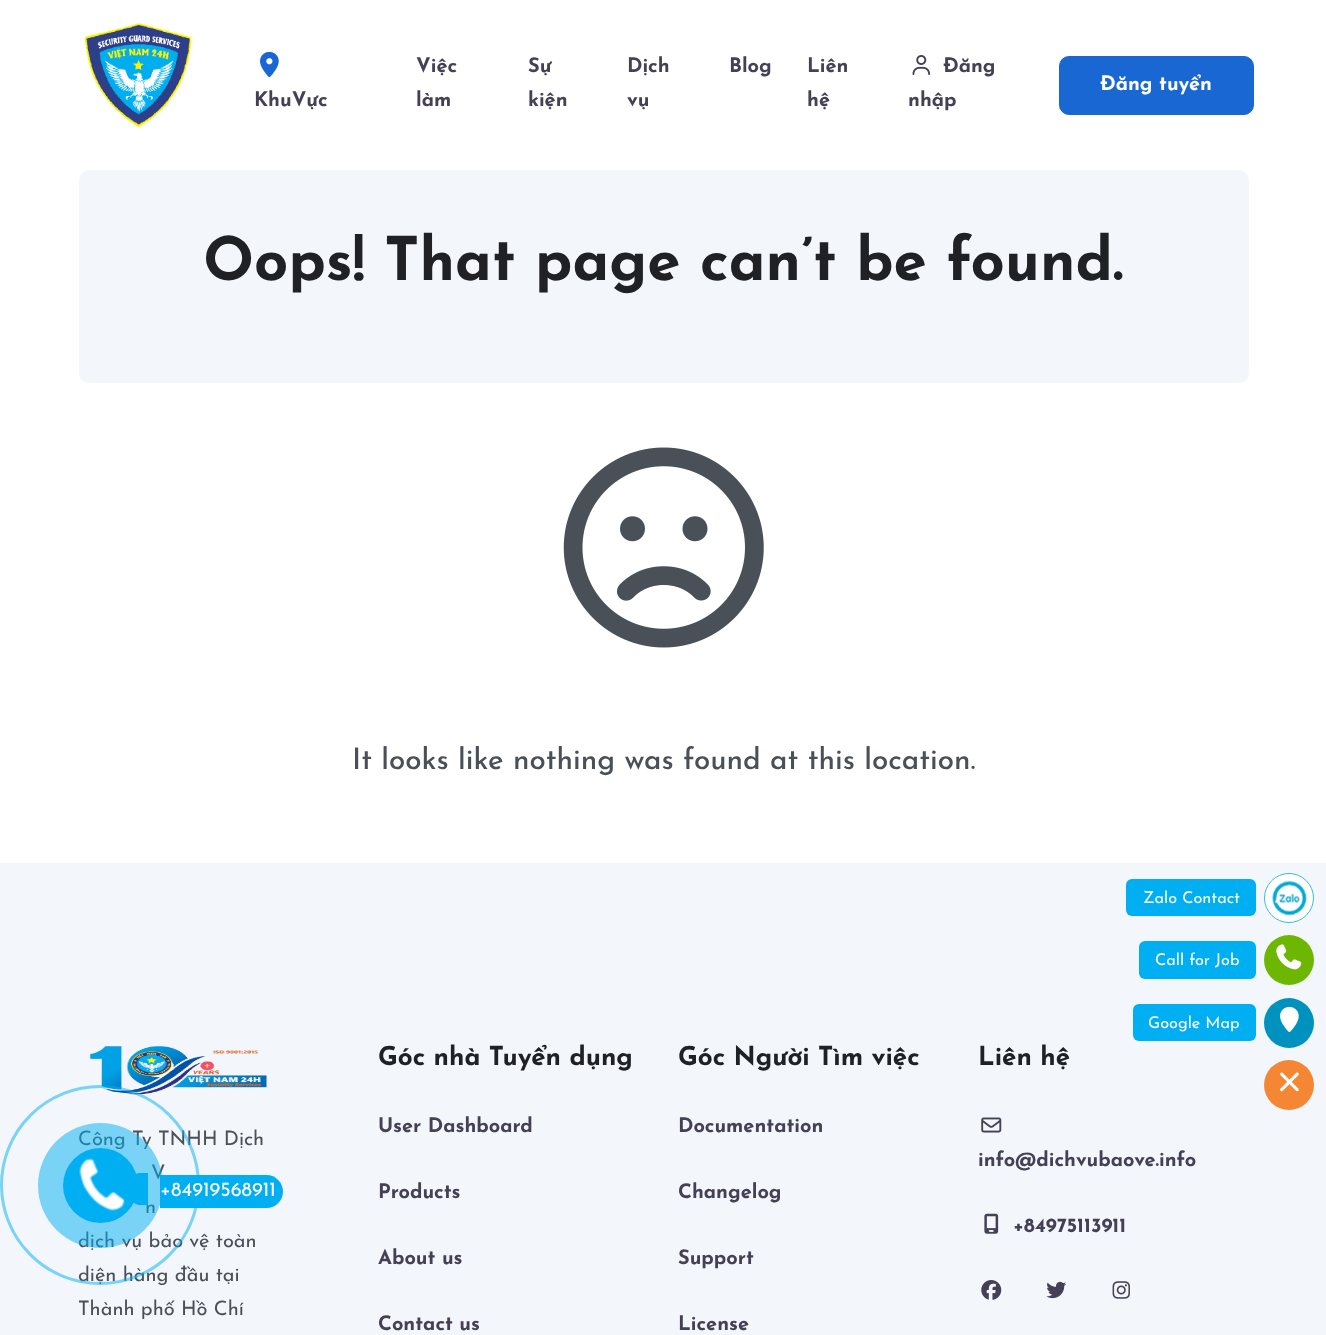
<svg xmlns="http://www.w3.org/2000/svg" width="1326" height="1335">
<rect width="100%" height="100%" fill="#fff"/>
<image x="85" y="22" width="107" height="106" href="media/1.png"/>
<text x="416" y="72" style="font-family:Josefin Sans;font-size:20px;font-weight:bold;fill:#454056">Việc</text>
<text x="416" y="106" style="font-family:Josefin Sans;font-size:20px;font-weight:bold;fill:#454056">làm</text>
<text x="528" y="72" style="font-family:Josefin Sans;font-size:20px;font-weight:bold;fill:#454056">Sự</text>
<text x="528" y="106" style="font-family:Josefin Sans;font-size:20px;font-weight:bold;fill:#454056">kiện</text>
<text x="627" y="72" style="font-family:Josefin Sans;font-size:20px;font-weight:bold;fill:#454056">Dịch</text>
<text x="627" y="106" style="font-family:Josefin Sans;font-size:20px;font-weight:bold;fill:#454056">vụ</text>
<text x="729" y="72" style="font-family:Josefin Sans;font-size:20px;font-weight:bold;fill:#454056">Blog</text>
<text x="807" y="72" style="font-family:Josefin Sans;font-size:20px;font-weight:bold;fill:#454056">Liên</text>
<text x="807" y="106" style="font-family:Josefin Sans;font-size:20px;font-weight:bold;fill:#454056">hệ</text>
<image x="912" y="55" width="18" height="20" href="media/2.png"/>
<text x="943" y="72" style="font-family:Josefin Sans;font-size:20px;font-weight:bold;fill:#454056">Đăng</text>
<text x="908" y="106" style="font-family:Josefin Sans;font-size:20px;font-weight:bold;fill:#454056">nhập</text>
<rect x="1059.5" y="56.5" width="194" height="58" rx="9.5" fill="#1967d2" stroke="#1967d2"/>
<text x="1100" y="90" style="font-family:Josefin Sans;font-size:20px;font-weight:bold;fill:#fff">Đăng tuyển</text>
<image x="260" y="51" width="19" height="26" href="media/3.png"/>
<text x="254" y="106" style="font-family:Josefin Sans;font-size:20px;font-weight:bold;fill:#454056">KhuVực</text>
<rect x="79" y="170" width="1170" height="213" rx="10" fill="#f3f6fb"/>
<text x="203" y="280" style="font-family:Josefin Sans;font-size:60px;font-weight:bold;fill:#202124">Oops! That page can’t be found.</text>
<image x="563" y="447" width="201" height="201" href="media/4.png"/>
<text x="352" y="769" style="font-family:Josefin Sans;font-size:29.5px;font-weight:500;fill:#495057">It looks like nothing was found at this location.</text>
<rect y="863" width="1326" height="472" fill="#f3f6fb"/>
<image x="89" y="1046" width="178" height="49" href="media/5.png"/>
<text x="78" y="1145" style="font-family:Josefin Sans;font-size:20px;fill:#495057">Công Ty TNHH Dịch</text>
<text x="151" y="1179" style="font-family:Josefin Sans;font-size:20px;fill:#495057">V</text>
<text x="145" y="1213" style="font-family:Josefin Sans;font-size:20px;fill:#495057">n</text>
<text x="78" y="1247" style="font-family:Josefin Sans;font-size:20px;fill:#495057">dịch vụ bảo vệ toàn</text>
<text x="78" y="1281" style="font-family:Josefin Sans;font-size:20px;fill:#495057">diện hàng đầu tại</text>
<text x="78" y="1315" style="font-family:Josefin Sans;font-size:20px;fill:#495057">Thành phố Hồ Chí</text>
<text x="378" y="1065" style="font-family:Josefin Sans;font-size:26px;font-weight:bold;fill:#202124">Góc nhà Tuyển dụng</text>
<text x="378" y="1132" style="font-family:Josefin Sans;font-size:20px;font-weight:bold;fill:#454056">User Dashboard</text>
<text x="378" y="1198" style="font-family:Josefin Sans;font-size:20px;font-weight:bold;fill:#454056">Products</text>
<text x="378" y="1264" style="font-family:Josefin Sans;font-size:20px;font-weight:bold;fill:#454056">About us</text>
<text x="378" y="1330" style="font-family:Josefin Sans;font-size:20px;font-weight:bold;fill:#454056">Contact us</text>
<text x="678" y="1065" style="font-family:Josefin Sans;font-size:26px;font-weight:bold;fill:#202124">Góc Người Tìm việc</text>
<text x="678" y="1132" style="font-family:Josefin Sans;font-size:20px;font-weight:bold;fill:#454056">Documentation</text>
<text x="678" y="1198" style="font-family:Josefin Sans;font-size:20px;font-weight:bold;fill:#454056">Changelog</text>
<text x="678" y="1264" style="font-family:Josefin Sans;font-size:20px;font-weight:bold;fill:#454056">Support</text>
<text x="678" y="1330" style="font-family:Josefin Sans;font-size:20px;font-weight:bold;fill:#454056">License</text>
<text x="978" y="1065" style="font-family:Josefin Sans;font-size:26px;font-weight:bold;fill:#202124">Liên hệ</text>
<image x="981" y="1117" width="21" height="16" href="media/6.png"/>
<text x="978" y="1166" style="font-family:Josefin Sans;font-size:20px;font-weight:bold;fill:#454056">info@dichvubaove.info</text>
<image x="984" y="1213" width="15" height="21" href="media/7.png"/>
<text x="1013" y="1232" style="font-family:Josefin Sans;font-size:20px;font-weight:bold;fill:#454056">+84975113911</text>
<image x="981" y="1280" width="21" height="20" href="media/8.png"/>
<image x="1046" y="1281" width="21" height="18" href="media/9.png"/>
<image x="1112" y="1281" width="18" height="18" href="media/10.png"/>
<rect x="1126" y="879" width="130" height="37" rx="6" fill="#00aff2"/>
<text x="1143" y="903" style="font-family:Josefin Sans;font-size:16.25px;fill:#fff">Zalo Contact</text>
<circle cx="1289" cy="898" r="25" fill="#fff"/>
<image x="1271" y="880" width="36" height="36" href="media/11.png"/>
<circle cx="1289" cy="898" r="24.5" fill="none" stroke="#38b9db"/>
<rect x="1139" y="941" width="117" height="38" rx="6" fill="#00aff2"/>
<text x="1155" y="965" style="font-family:Josefin Sans;font-size:16.25px;fill:#fff">Call for Job</text>
<circle cx="1289" cy="960" r="25" fill="#6db703"/>
<image x="1276" y="944" width="26" height="26" href="media/12.png"/>
<rect x="1133" y="1004" width="123" height="37" rx="6" fill="#00aff2"/>
<text x="1148" y="1028" style="font-family:Josefin Sans;font-size:16.25px;fill:#fff">Google Map</text>
<circle cx="1289" cy="1023" r="25" fill="#0092bf"/>
<image x="1280" y="1006" width="19" height="26" href="media/13.png"/>
<circle cx="1289" cy="1085" r="25" fill="#f58634"/>
<image x="1280" y="1072" width="19" height="20" href="media/14.png"/>
<circle cx="100" cy="1185" r="98.5" fill="none" stroke="#00aff280" stroke-width="3"/>
<circle cx="100.5" cy="1185.5" r="62.5" fill="#00aff280"/>
<circle cx="100.5" cy="1185.5" r="37.5" fill="#00aff2"/>
<image x="79" y="1158" width="46" height="53" href="media/15.png"/>
<path d="M160 1175h106.5c9 0 16.5 7.5 16.5 16.5c0 9-7.5 16.5-16.5 16.5h-106.5z" fill="#00aff2"/>
<text x="160" y="1196" style="font-family:Josefin Sans;font-size:20px;fill:#fff">+84919568911</text>
<path d="M139.5 1173h8.5v32h-8.5c-4.5 0-8.5-4-8.5-8.5v-15c0-4.5 4-8.5 8.5-8.5z" fill="#00aff2"/>
</svg>
